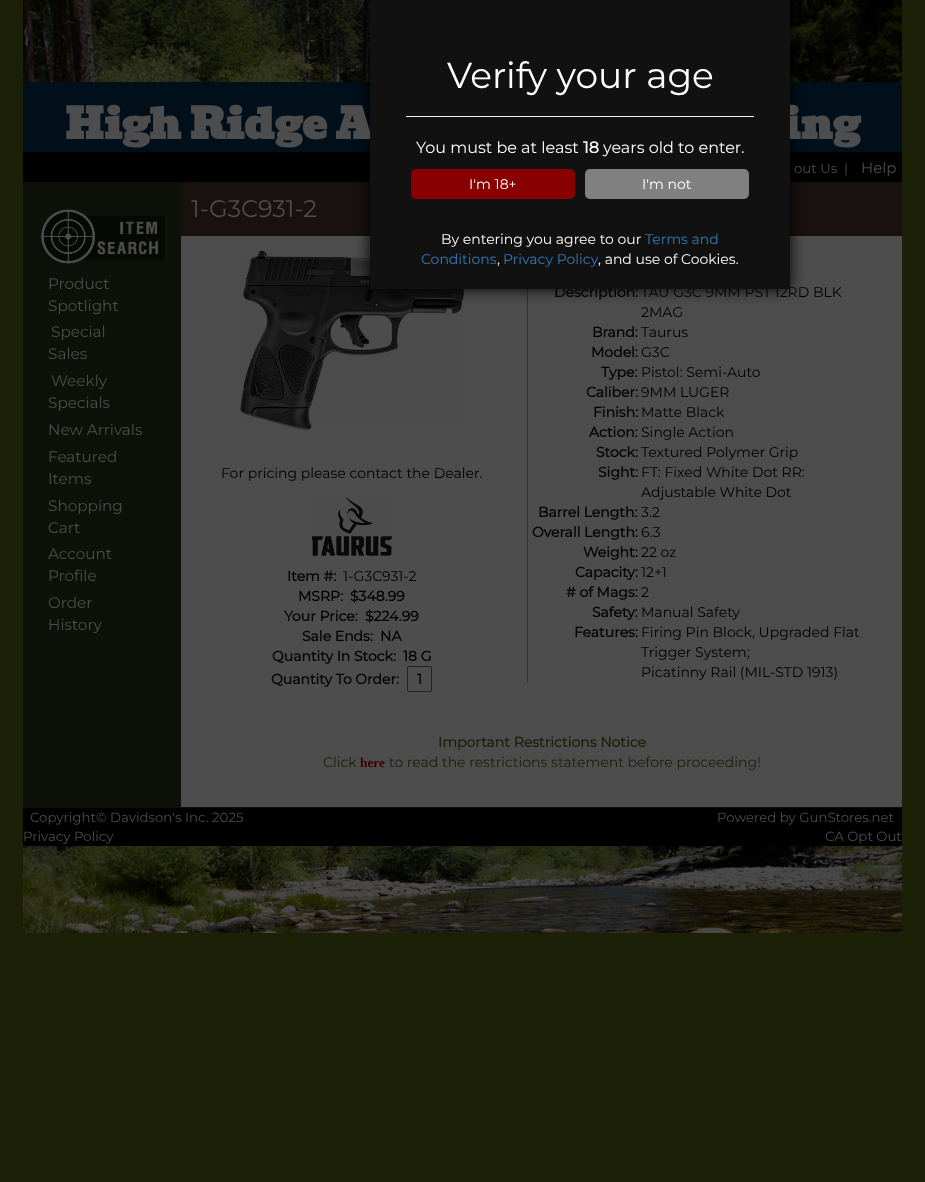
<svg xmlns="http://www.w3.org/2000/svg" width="925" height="1182">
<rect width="100%" height="100%" fill="#1c2007"/>
<rect x="23" y="82" width="879" height="70" fill="#000f1a"/>
<image x="23" y="0" width="879" height="82" href="media/1.png"/>
<rect x="23" y="152" width="879" height="30" fill="#000"/>
<rect x="23" y="182" width="879" height="626" fill="#0e1109"/>
<rect x="181" y="236" width="721" height="571" fill="#4d4d4d"/>
<rect x="181" y="182" width="721" height="54" fill="#18110f"/>
<image x="240" y="250" width="224" height="180" href="media/3.png"/>
<rect x="527" y="289" width="1" height="393" fill="#333"/>
<rect x="370" width="420" height="289" fill="#000" filter="blur(7.5px)"/>
<text x="65" y="139" style="font-family:Bevan;font-size:42px;font-weight:bold;fill:#4d4d4d">High Ridge A</text>
<text x="782" y="139" style="font-family:Bevan;font-size:42px;font-weight:bold;fill:#4d4d4d">ing</text>
<text x="554" y="297" style="font-family:Montserrat;font-size:14px;font-weight:bold;fill:#000">Description:</text>
<text x="641" y="297" style="font-family:Montserrat;font-size:14px;font-weight:100;fill:#000">TAU G3C 9MM PST 12RD BLK</text>
<rect x="370" width="420" height="289" fill="#121111"/>
<text x="447" y="88" style="font-family:Montserrat;font-size:36px;font-weight:100;fill:#fff">Verify your age</text>
<rect x="406" y="116" width="348" height="1" fill="#eee"/>
<text x="416" y="153" style="font-family:Montserrat;font-size:16px;font-weight:100;fill:#fff">You must be at least</text>
<text x="583" y="153" style="font-family:Montserrat;font-size:16px;font-weight:bold;fill:#fff">18</text>
<text x="603" y="153" style="font-family:Montserrat;font-size:16px;font-weight:100;fill:#fff">years old to enter.</text>
<rect x="411" y="169" width="164" height="30" rx="5" fill="#800"/>
<text x="469" y="189" style="font-family:Montserrat;font-size:14px;font-weight:100;fill:#fff">I'm 18+</text>
<rect x="585" y="169" width="164" height="30" rx="5" fill="#808080"/>
<text x="642" y="189" style="font-family:Montserrat;font-size:14px;font-weight:100;fill:#fff">I'm not</text>
<text x="441" y="244" style="font-family:Montserrat;font-size:14px;font-weight:100;fill:#fff">By entering you agree to our</text>
<text x="645" y="244" style="font-family:Montserrat;font-size:14px;font-weight:100;fill:#337ab7">Terms and</text>
<text x="421" y="264" style="font-family:Montserrat;font-size:14px;font-weight:100;fill:#337ab7">Conditions</text>
<text x="497" y="264" style="font-family:Montserrat;font-size:14px;font-weight:100;fill:#fff">,</text>
<text x="503" y="264" style="font-family:Montserrat;font-size:14px;font-weight:100;fill:#337ab7">Privacy Policy</text>
<text x="598" y="264" style="font-family:Montserrat;font-size:14px;font-weight:100;fill:#fff">, and use of Cookies.</text>
<text x="794" y="173" style="font-family:Montserrat;font-size:13.3px;font-weight:100;fill:#4d4d4d">out Us</text>
<text x="844" y="173" style="font-family:Montserrat;font-size:13.3px;font-weight:100;fill:#4d4d4d">|</text>
<text x="861" y="173" style="font-family:Montserrat;font-size:15px;font-weight:100;fill:#4d4d4d">Help</text>
<image x="41" y="209" width="124" height="58" href="media/2.png"/>
<text x="48" y="289" style="font-family:Montserrat;font-size:15.25px;font-weight:100;fill:#4d4d4d">Product</text>
<text x="48" y="311" style="font-family:Montserrat;font-size:15.25px;font-weight:100;fill:#4d4d4d">Spotlight</text>
<text x="51" y="337" style="font-family:Montserrat;font-size:15.25px;font-weight:100;fill:#4d4d4d">Special</text>
<text x="48" y="359" style="font-family:Montserrat;font-size:15.25px;font-weight:100;fill:#4d4d4d">Sales</text>
<text x="51" y="386" style="font-family:Montserrat;font-size:15.25px;font-weight:100;fill:#4d4d4d">Weekly</text>
<text x="48" y="408" style="font-family:Montserrat;font-size:15.25px;font-weight:100;fill:#4d4d4d">Specials</text>
<text x="48" y="435" style="font-family:Montserrat;font-size:15.25px;font-weight:100;fill:#4d4d4d">New Arrivals</text>
<text x="48" y="462" style="font-family:Montserrat;font-size:15.25px;font-weight:100;fill:#4d4d4d">Featured</text>
<text x="48" y="484" style="font-family:Montserrat;font-size:15.25px;font-weight:100;fill:#4d4d4d">Items</text>
<text x="48" y="511" style="font-family:Montserrat;font-size:15.25px;font-weight:100;fill:#4d4d4d">Shopping</text>
<text x="48" y="533" style="font-family:Montserrat;font-size:15.25px;font-weight:100;fill:#4d4d4d">Cart</text>
<text x="48" y="559" style="font-family:Montserrat;font-size:15.25px;font-weight:100;fill:#4d4d4d">Account</text>
<text x="48" y="581" style="font-family:Montserrat;font-size:15.25px;font-weight:100;fill:#4d4d4d">Profile</text>
<text x="48" y="608" style="font-family:Montserrat;font-size:15.25px;font-weight:100;fill:#4d4d4d">Order</text>
<text x="48" y="630" style="font-family:Montserrat;font-size:15.25px;font-weight:100;fill:#4d4d4d">History</text>
<text x="191" y="217" style="font-family:Montserrat;font-size:24px;font-weight:100;fill:#4d4d4d">1-G3C931-2</text>
<text x="221" y="478" style="font-family:Montserrat;font-size:14px;font-weight:100;fill:#000">For pricing please contact the Dealer.</text>
<image x="312" y="496" width="80" height="60" href="media/4.png"/>
<text x="287" y="581" style="font-family:Montserrat;font-size:14px;font-weight:bold;fill:#000">Item #:</text>
<text x="343" y="581" style="font-family:Montserrat;font-size:14px;font-weight:100;fill:#000">1-G3C931-2</text>
<text x="298" y="601" style="font-family:Montserrat;font-size:14px;font-weight:bold;fill:#000">MSRP:</text>
<text x="350" y="601" style="font-family:Montserrat;font-size:14px;font-weight:bold;fill:#000">$348.99</text>
<text x="284" y="621" style="font-family:Montserrat;font-size:14px;font-weight:bold;fill:#000">Your Price:</text>
<text x="365" y="621" style="font-family:Montserrat;font-size:14px;font-weight:bold;fill:#000">$224.99</text>
<text x="302" y="641" style="font-family:Montserrat;font-size:14px;font-weight:bold;fill:#000">Sale Ends:</text>
<text x="380" y="641" style="font-family:Montserrat;font-size:14px;font-weight:bold;fill:#000">NA</text>
<text x="272" y="661" style="font-family:Montserrat;font-size:14px;font-weight:bold;fill:#000">Quantity In Stock:</text>
<text x="403" y="661" style="font-family:Montserrat;font-size:14px;font-weight:bold;fill:#000">18 G</text>
<text x="271" y="684" style="font-family:Montserrat;font-size:14px;font-weight:bold;fill:#000">Quantity To Order:</text>
<rect x="407.5" y="666.5" width="24" height="25" rx="1.5" fill="none" stroke="#232323"/>
<text x="417" y="684" style="font-family:Montserrat;font-size:14px;font-weight:bold;fill:#000">1</text>
<text x="641" y="317" style="font-family:Montserrat;font-size:14px;font-weight:100;fill:#000">2MAG</text>
<text x="592" y="337" style="font-family:Montserrat;font-size:14px;font-weight:bold;fill:#000">Brand:</text>
<text x="641" y="337" style="font-family:Montserrat;font-size:14px;font-weight:100;fill:#000">Taurus</text>
<text x="591" y="357" style="font-family:Montserrat;font-size:14px;font-weight:bold;fill:#000">Model:</text>
<text x="641" y="357" style="font-family:Montserrat;font-size:14px;font-weight:100;fill:#000">G3C</text>
<text x="601" y="377" style="font-family:Montserrat;font-size:14px;font-weight:bold;fill:#000">Type:</text>
<text x="641" y="377" style="font-family:Montserrat;font-size:14px;font-weight:100;fill:#000">Pistol: Semi-Auto</text>
<text x="586" y="397" style="font-family:Montserrat;font-size:14px;font-weight:bold;fill:#000">Caliber:</text>
<text x="641" y="397" style="font-family:Montserrat;font-size:14px;font-weight:100;fill:#000">9MM LUGER</text>
<text x="593" y="417" style="font-family:Montserrat;font-size:14px;font-weight:bold;fill:#000">Finish:</text>
<text x="641" y="417" style="font-family:Montserrat;font-size:14px;font-weight:100;fill:#000">Matte Black</text>
<text x="589" y="437" style="font-family:Montserrat;font-size:14px;font-weight:bold;fill:#000">Action:</text>
<text x="641" y="437" style="font-family:Montserrat;font-size:14px;font-weight:100;fill:#000">Single Action</text>
<text x="596" y="457" style="font-family:Montserrat;font-size:14px;font-weight:bold;fill:#000">Stock:</text>
<text x="641" y="457" style="font-family:Montserrat;font-size:14px;font-weight:100;fill:#000">Textured Polymer Grip</text>
<text x="598" y="477" style="font-family:Montserrat;font-size:14px;font-weight:bold;fill:#000">Sight:</text>
<text x="641" y="477" style="font-family:Montserrat;font-size:14px;font-weight:100;fill:#000">FT: Fixed White Dot RR:</text>
<text x="641" y="497" style="font-family:Montserrat;font-size:14px;font-weight:100;fill:#000">Adjustable White Dot</text>
<text x="538" y="517" style="font-family:Montserrat;font-size:14px;font-weight:bold;fill:#000">Barrel Length:</text>
<text x="641" y="517" style="font-family:Montserrat;font-size:14px;font-weight:100;fill:#000">3.2</text>
<text x="532" y="537" style="font-family:Montserrat;font-size:14px;font-weight:bold;fill:#000">Overall Length:</text>
<text x="641" y="537" style="font-family:Montserrat;font-size:14px;font-weight:100;fill:#000">6.3</text>
<text x="583" y="557" style="font-family:Montserrat;font-size:14px;font-weight:bold;fill:#000">Weight:</text>
<text x="641" y="557" style="font-family:Montserrat;font-size:14px;font-weight:100;fill:#000">22 oz</text>
<text x="575" y="577" style="font-family:Montserrat;font-size:14px;font-weight:bold;fill:#000">Capacity:</text>
<text x="641" y="577" style="font-family:Montserrat;font-size:14px;font-weight:100;fill:#000">12+1</text>
<text x="566" y="597" style="font-family:Montserrat;font-size:14px;font-weight:bold;fill:#000"># of Mags:</text>
<text x="641" y="597" style="font-family:Montserrat;font-size:14px;font-weight:100;fill:#000">2</text>
<text x="592" y="617" style="font-family:Montserrat;font-size:14px;font-weight:bold;fill:#000">Safety:</text>
<text x="641" y="617" style="font-family:Montserrat;font-size:14px;font-weight:100;fill:#000">Manual Safety</text>
<text x="574" y="637" style="font-family:Montserrat;font-size:14px;font-weight:bold;fill:#000">Features:</text>
<text x="641" y="637" style="font-family:Montserrat;font-size:14px;font-weight:100;fill:#000">Firing Pin Block, Upgraded Flat</text>
<text x="641" y="657" style="font-family:Montserrat;font-size:14px;font-weight:100;fill:#000">Trigger System;</text>
<text x="641" y="677" style="font-family:Montserrat;font-size:14px;font-weight:100;fill:#000">Picatinny Rail (MIL-STD 1913)</text>
<text x="438" y="747" style="font-family:Montserrat;font-size:14px;font-weight:bold;fill:#1c2007">Important Restrictions Notice</text>
<text x="323" y="767" style="font-family:Montserrat;font-size:14px;font-weight:100;fill:#1c2007">Click</text>
<text x="360" y="767" style="font-family:Liberation Serif;font-size:13.3px;font-weight:bold;fill:#3d0000">here</text>
<text x="389" y="767" style="font-family:Montserrat;font-size:14px;font-weight:100;fill:#1c2007">to read the restrictions statement before proceeding!</text>
<rect x="23" y="808" width="879" height="38" fill="#000"/>
<text x="30" y="822" style="font-family:Montserrat;font-size:13.3px;font-weight:100;fill:#4d4d4d">Copyright© Davidson's Inc. 2025</text>
<text x="717" y="822" style="font-family:Montserrat;font-size:13.3px;font-weight:100;fill:#4d4d4d">Powered by GunStores.net</text>
<text x="23" y="841" style="font-family:Montserrat;font-size:13.3px;font-weight:100;fill:#4d4d4d">Privacy Policy</text>
<text x="825" y="841" style="font-family:Montserrat;font-size:13.3px;font-weight:100;fill:#4d4d4d">CA Opt Out</text>
<image x="23" y="846" width="879" height="87" href="media/5.png"/>
</svg>
